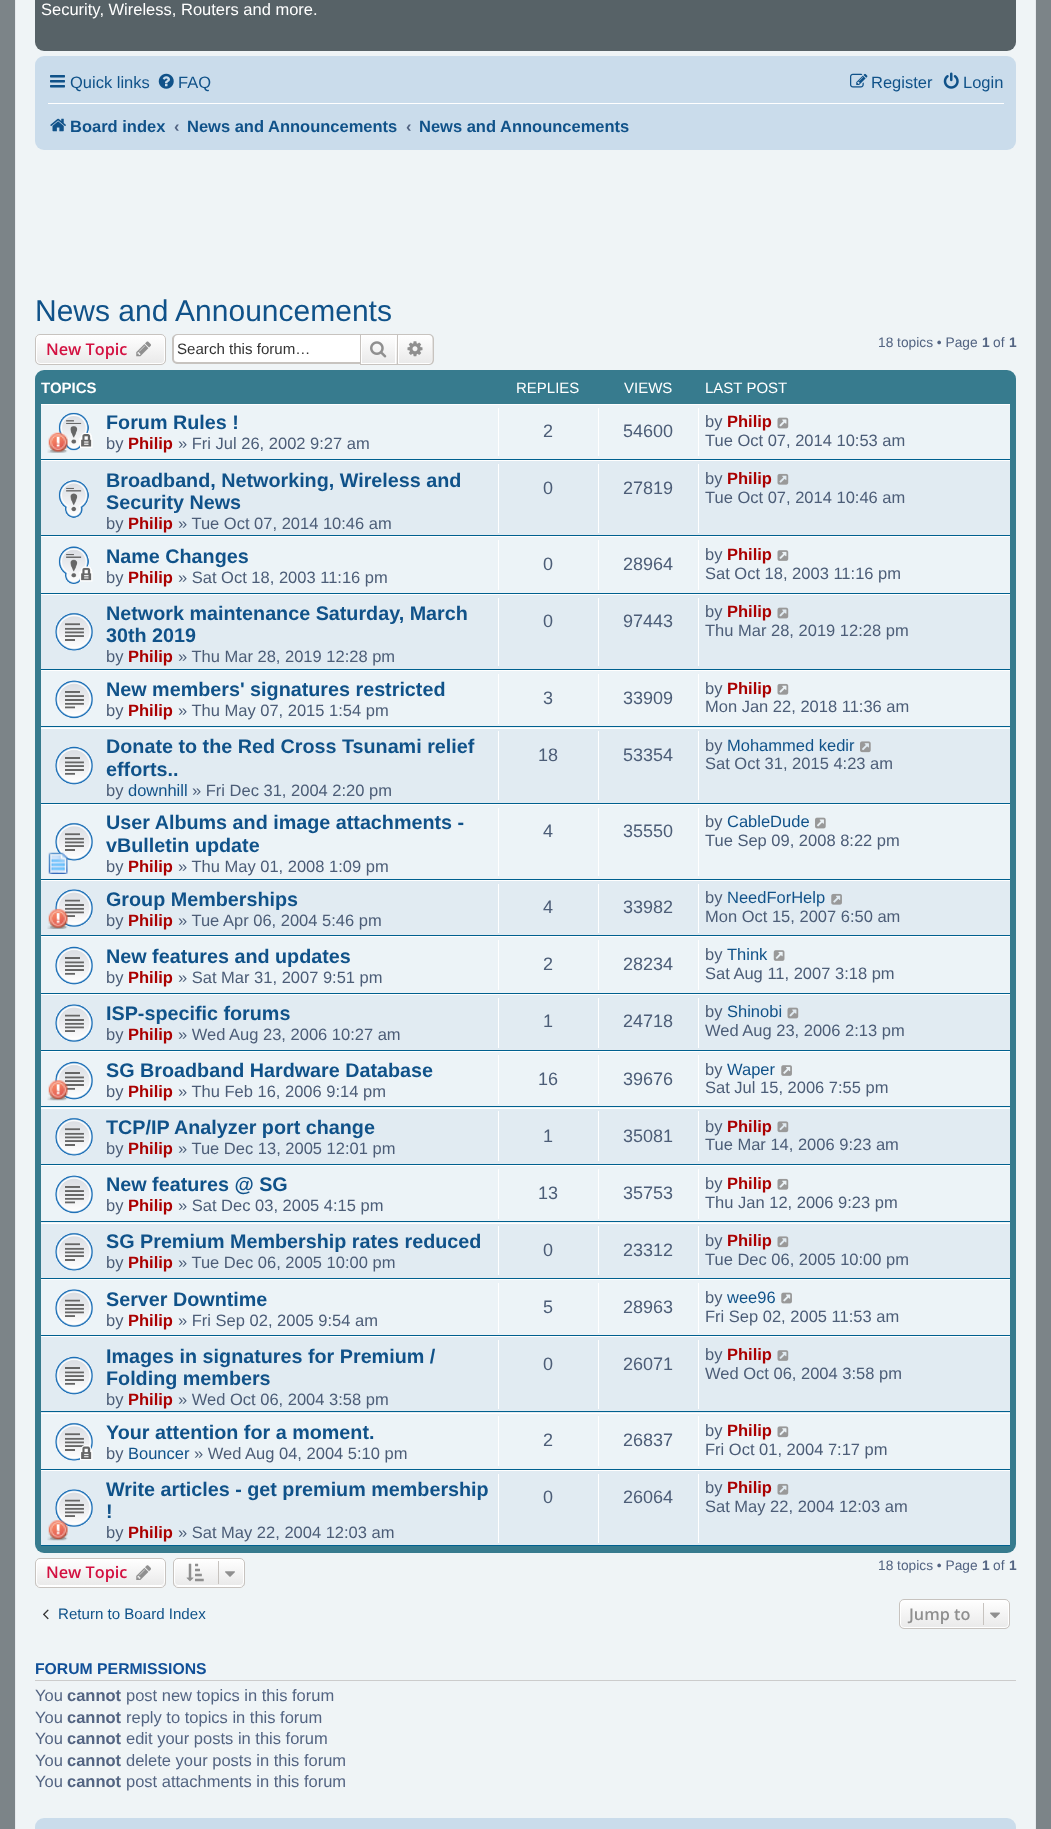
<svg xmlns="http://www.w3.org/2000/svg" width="1051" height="1829">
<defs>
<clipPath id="clip1"><rect x="35" y="334" width="131" height="31" rx="5"/></clipPath>
<linearGradient id="g1" gradientUnits="userSpaceOnUse" x1="101" y1="335" x2="101" y2="364"><stop offset="0" stop-color="#fff"/><stop offset="1" stop-color="#e9e9e9"/></linearGradient>
<linearGradient id="g2" gradientUnits="userSpaceOnUse" x1="379" y1="335" x2="379" y2="364"><stop offset="0" stop-color="#fff"/><stop offset="1" stop-color="#e9e9e9"/></linearGradient>
<linearGradient id="g3" gradientUnits="userSpaceOnUse" x1="415" y1="335" x2="415" y2="364"><stop offset="0" stop-color="#fff"/><stop offset="1" stop-color="#e9e9e9"/></linearGradient>
<clipPath id="clip2"><rect x="35" y="1558" width="131" height="30" rx="5"/></clipPath>
<linearGradient id="g4" gradientUnits="userSpaceOnUse" x1="101" y1="1559" x2="101" y2="1586"><stop offset="0" stop-color="#fff"/><stop offset="1" stop-color="#e9e9e9"/></linearGradient>
<linearGradient id="g5" gradientUnits="userSpaceOnUse" x1="101" y1="1586" x2="101" y2="1614"><stop offset="0" stop-color="#fff"/><stop offset="1" stop-color="#e9e9e9"/></linearGradient>
<clipPath id="clip3"><rect x="173" y="1558" width="72" height="30" rx="5"/></clipPath>
<linearGradient id="g6" gradientUnits="userSpaceOnUse" x1="209" y1="1559" x2="209" y2="1586"><stop offset="0" stop-color="#fff"/><stop offset="1" stop-color="#e9e9e9"/></linearGradient>
<linearGradient id="g7" gradientUnits="userSpaceOnUse" x1="209" y1="1586" x2="209" y2="1614"><stop offset="0" stop-color="#fff"/><stop offset="1" stop-color="#e9e9e9"/></linearGradient>
<clipPath id="clip4"><rect x="899" y="1599" width="111" height="30" rx="5"/></clipPath>
<linearGradient id="g8" gradientUnits="userSpaceOnUse" x1="954" y1="1600" x2="954" y2="1628"><stop offset="0" stop-color="#fff"/><stop offset="1" stop-color="#e9e9e9"/></linearGradient>
</defs>
<rect width="100%" height="100%" fill="#7c8488"/>
<rect x="15.5" y="-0.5" width="1020" height="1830" fill="#eff4f6" stroke="#e6e9ed"/>
<rect x="35" y="-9" width="981" height="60" rx="9" fill="#576267"/>
<text x="41" y="15" style="font-family:Liberation Sans;font-size:16.5px;fill:#fff">Security, Wireless, Routers and more.</text>
<rect x="35" y="56" width="981" height="94" rx="9" fill="#cadceb"/>
<image x="50" y="75" width="15" height="13" href="media/1.png"/>
<text x="70" y="88" style="font-family:Liberation Sans;font-size:16.5px;fill:#105289">Quick links</text>
<image x="158" y="73" width="16" height="16" href="media/2.png"/>
<text x="178" y="88" style="font-family:Liberation Sans;font-size:16.5px;fill:#105289">FAQ</text>
<image x="850" y="73" width="18" height="15" href="media/3.png"/>
<text x="871" y="88" style="font-family:Liberation Sans;font-size:16.5px;fill:#105289">Register</text>
<image x="943" y="72" width="16" height="17" href="media/4.png"/>
<text x="963" y="88" style="font-family:Liberation Sans;font-size:16.5px;fill:#105289">Login</text>
<rect x="48" y="103" width="956" height="1" fill="#fff"/>
<image x="50" y="118" width="16" height="14" href="media/5.png"/>
<text x="70" y="132" style="font-family:Liberation Sans;font-size:16.5px;font-weight:bold;fill:#105289">Board index</text>
<text x="174" y="132" style="font-family:Liberation Sans;font-size:16.5px;font-weight:bold;fill:#536482">‹</text>
<text x="187" y="132" style="font-family:Liberation Sans;font-size:16.5px;font-weight:bold;fill:#105289">News and Announcements</text>
<text x="406" y="132" style="font-family:Liberation Sans;font-size:16.5px;font-weight:bold;fill:#536482">‹</text>
<text x="419" y="132" style="font-family:Liberation Sans;font-size:16.5px;font-weight:bold;fill:#105289">News and Announcements</text>
<text x="35" y="321" style="font-family:Liberation Sans;font-size:30px;fill:#105289">News and Announcements</text>
<g clip-path="url(#clip1)">
<rect x="35" y="335" width="131" height="29" fill="url(#g1)"/>
</g>
<rect x="36.5" y="335.5" width="128" height="28" rx="3.5" fill="none" stroke="#fff"/>
<rect x="35.5" y="334.5" width="130" height="30" rx="4.5" fill="none" stroke="#c7c3bf"/>
<text x="46" y="355" style="font-family:Open Sans;font-size:16.25px;font-weight:600;fill:#d31141">New Topic</text>
<image x="136" y="341" width="15" height="16" href="media/6.png"/>
<path d="M178 335h182v28h-182c-2 0-4-2-4-4v-20c0-2 2-4 4-4z" fill="#fff"/>
<path d="M178 334h182v30h-182c-3 0-6-2-6-5v-20c0-3 3-5 6-5zm0 1h182v27h-182c-3 0-4-1-4-3v-20c0-2 1-4 4-4z" fill="#c7c3bf" fill-rule="evenodd"/>
<text x="177" y="354" style="font-family:Liberation Sans;font-size:15.1px;fill:#333">Search this forum…</text>
<rect x="362" y="335" width="35" height="29" fill="url(#g2)"/>
<rect x="361.5" y="335.5" width="34" height="28" fill="none" stroke="#fff"/>
<rect x="360.5" y="334.5" width="37" height="30" fill="none" stroke="#c7c3bf"/>
<image x="370" y="341" width="17" height="17" href="media/7.png"/>
<path d="M398.5 335.5h30.5c2 0 3.5 1.5 3.5 3.5v21c0 2-1.5 3.5-3.5 3.5h-30.5z" fill="url(#g3)" stroke="#fff"/>
<path d="M397.5 334h31.5c2.5 0 5 2 5 5v21c0 3-2.5 5-5 5h-31.5zm0 1h31.5c2 0 3.5 1.5 3.5 4v21c0 2-1.5 4-3.5 4h-31.5z" fill="#c7c3bf" fill-rule="evenodd"/>
<image x="407" y="341" width="16" height="16" href="media/8.png"/>
<text x="878" y="347" style="font-family:Liberation Sans;font-size:13.75px;fill:#536482">18 topics • Page</text>
<text x="982" y="347" style="font-family:Liberation Sans;font-size:13.75px;font-weight:bold;fill:#536482">1</text>
<text x="993" y="347" style="font-family:Liberation Sans;font-size:13.75px;fill:#536482">of</text>
<text x="1009" y="347" style="font-family:Liberation Sans;font-size:13.75px;font-weight:bold;fill:#536482">1</text>
<rect x="35" y="370" width="981" height="1183" rx="9" fill="#377b8e"/>
<text x="41" y="393" style="font-family:Liberation Sans;font-size:15px;font-weight:bold;fill:#fff">TOPICS</text>
<text x="516" y="393" style="font-family:Liberation Sans;font-size:15px;fill:#fff">REPLIES</text>
<text x="624" y="393" style="font-family:Liberation Sans;font-size:15px;fill:#fff">VIEWS</text>
<text x="705" y="393" style="font-family:Liberation Sans;font-size:15px;fill:#fff">LAST POST</text>
<rect x="41" y="405" width="969" height="54" fill="#ecf3f7"/>
<rect x="41" y="404" width="969" height="1" fill="#fff"/>
<rect x="41" y="459" width="969" height="1" fill="#00608f"/>
<image x="58" y="412" width="35" height="39" href="media/9.png"/>
<image x="47" y="432" width="21" height="21" href="media/10.png"/>
<text x="106" y="429" style="font-family:Liberation Sans;font-size:19.75px;font-weight:bold;fill:#105289">Forum Rules !</text>
<text x="106" y="449" style="font-family:Liberation Sans;font-size:16.5px;fill:#4c5d77">by</text>
<text x="128" y="449" style="font-family:Liberation Sans;font-size:16.5px;font-weight:bold;fill:#a00">Philip</text>
<text x="178" y="449" style="font-family:Liberation Sans;font-size:16.5px;fill:#4c5d77">» Fri Jul 26, 2002 9:27 am</text>
<rect x="498" y="408" width="1" height="48" fill="#fff"/>
<text x="543" y="437" style="font-family:Liberation Sans;font-size:18px;fill:#4c5d77">2</text>
<rect x="598" y="408" width="1" height="48" fill="#fff"/>
<text x="623" y="437" style="font-family:Liberation Sans;font-size:18px;fill:#4c5d77">54600</text>
<rect x="698" y="408" width="1" height="48" fill="#fff"/>
<text x="705" y="427" style="font-family:Liberation Sans;font-size:16.5px;fill:#4c5d77">by</text>
<text x="727" y="427" style="font-family:Liberation Sans;font-size:16.5px;font-weight:bold;fill:#a00">Philip</text>
<image x="777" y="417" width="12" height="12" href="media/11.png"/>
<text x="705" y="446" style="font-family:Liberation Sans;font-size:16.5px;fill:#4c5d77">Tue Oct 07, 2014 10:53 am</text>
<rect x="41" y="461" width="969" height="74" fill="#e1ebf2"/>
<rect x="41" y="460" width="969" height="1" fill="#fff"/>
<rect x="41" y="535" width="969" height="1" fill="#00608f"/>
<image x="58" y="480" width="31" height="38" href="media/12.png"/>
<text x="106" y="487" style="font-family:Liberation Sans;font-size:19.75px;font-weight:bold;fill:#105289">Broadband, Networking, Wireless and</text>
<text x="106" y="509" style="font-family:Liberation Sans;font-size:19.75px;font-weight:bold;fill:#105289">Security News</text>
<text x="106" y="529" style="font-family:Liberation Sans;font-size:16.5px;fill:#4c5d77">by</text>
<text x="128" y="529" style="font-family:Liberation Sans;font-size:16.5px;font-weight:bold;fill:#a00">Philip</text>
<text x="178" y="529" style="font-family:Liberation Sans;font-size:16.5px;fill:#4c5d77">» Tue Oct 07, 2014 10:46 am</text>
<rect x="498" y="464" width="1" height="69" fill="#fff"/>
<text x="543" y="494" style="font-family:Liberation Sans;font-size:18px;fill:#4c5d77">0</text>
<rect x="598" y="464" width="1" height="69" fill="#fff"/>
<text x="623" y="494" style="font-family:Liberation Sans;font-size:18px;fill:#4c5d77">27819</text>
<rect x="698" y="464" width="1" height="69" fill="#fff"/>
<text x="705" y="484" style="font-family:Liberation Sans;font-size:16.5px;fill:#4c5d77">by</text>
<text x="727" y="484" style="font-family:Liberation Sans;font-size:16.5px;font-weight:bold;fill:#a00">Philip</text>
<image x="777" y="473" width="12" height="12" href="media/13.png"/>
<text x="705" y="503" style="font-family:Liberation Sans;font-size:16.5px;fill:#4c5d77">Tue Oct 07, 2014 10:46 am</text>
<rect x="41" y="537" width="969" height="56" fill="#ecf3f7"/>
<rect x="41" y="536" width="969" height="1" fill="#fff"/>
<rect x="41" y="593" width="969" height="1" fill="#00608f"/>
<image x="58" y="546" width="35" height="38" href="media/14.png"/>
<text x="106" y="563" style="font-family:Liberation Sans;font-size:19.75px;font-weight:bold;fill:#105289">Name Changes</text>
<text x="106" y="583" style="font-family:Liberation Sans;font-size:16.5px;fill:#4c5d77">by</text>
<text x="128" y="583" style="font-family:Liberation Sans;font-size:16.5px;font-weight:bold;fill:#a00">Philip</text>
<text x="178" y="583" style="font-family:Liberation Sans;font-size:16.5px;fill:#4c5d77">» Sat Oct 18, 2003 11:16 pm</text>
<rect x="498" y="540" width="1" height="50" fill="#fff"/>
<text x="543" y="570" style="font-family:Liberation Sans;font-size:18px;fill:#4c5d77">0</text>
<rect x="598" y="540" width="1" height="50" fill="#fff"/>
<text x="623" y="570" style="font-family:Liberation Sans;font-size:18px;fill:#4c5d77">28964</text>
<rect x="698" y="540" width="1" height="50" fill="#fff"/>
<text x="705" y="560" style="font-family:Liberation Sans;font-size:16.5px;fill:#4c5d77">by</text>
<text x="727" y="560" style="font-family:Liberation Sans;font-size:16.5px;font-weight:bold;fill:#a00">Philip</text>
<image x="777" y="550" width="12" height="11" href="media/15.png"/>
<text x="705" y="579" style="font-family:Liberation Sans;font-size:16.5px;fill:#4c5d77">Sat Oct 18, 2003 11:16 pm</text>
<rect x="41" y="595" width="969" height="74" fill="#e1ebf2"/>
<rect x="41" y="594" width="969" height="1" fill="#fff"/>
<rect x="41" y="669" width="969" height="1" fill="#00608f"/>
<image x="55" y="612" width="38" height="39" href="media/16.png"/>
<text x="106" y="620" style="font-family:Liberation Sans;font-size:19.75px;font-weight:bold;fill:#105289">Network maintenance Saturday, March</text>
<text x="106" y="642" style="font-family:Liberation Sans;font-size:19.75px;font-weight:bold;fill:#105289">30th 2019</text>
<text x="106" y="662" style="font-family:Liberation Sans;font-size:16.5px;fill:#4c5d77">by</text>
<text x="128" y="662" style="font-family:Liberation Sans;font-size:16.5px;font-weight:bold;fill:#a00">Philip</text>
<text x="178" y="662" style="font-family:Liberation Sans;font-size:16.5px;fill:#4c5d77">» Thu Mar 28, 2019 12:28 pm</text>
<rect x="498" y="598" width="1" height="68" fill="#fff"/>
<text x="543" y="627" style="font-family:Liberation Sans;font-size:18px;fill:#4c5d77">0</text>
<rect x="598" y="598" width="1" height="68" fill="#fff"/>
<text x="623" y="627" style="font-family:Liberation Sans;font-size:18px;fill:#4c5d77">97443</text>
<rect x="698" y="598" width="1" height="68" fill="#fff"/>
<text x="705" y="617" style="font-family:Liberation Sans;font-size:16.5px;fill:#4c5d77">by</text>
<text x="727" y="617" style="font-family:Liberation Sans;font-size:16.5px;font-weight:bold;fill:#a00">Philip</text>
<image x="777" y="607" width="12" height="12" href="media/17.png"/>
<text x="705" y="636" style="font-family:Liberation Sans;font-size:16.5px;fill:#4c5d77">Thu Mar 28, 2019 12:28 pm</text>
<rect x="41" y="671" width="969" height="57" fill="#ecf3f7"/>
<rect x="41" y="670" width="969" height="1" fill="#fff"/>
<rect x="41" y="726" width="969" height="1" fill="#00608f"/>
<image x="55" y="680" width="38" height="39" href="media/18.png"/>
<text x="106" y="696" style="font-family:Liberation Sans;font-size:19.75px;font-weight:bold;fill:#105289">New members' signatures restricted</text>
<text x="106" y="716" style="font-family:Liberation Sans;font-size:16.5px;fill:#4c5d77">by</text>
<text x="128" y="716" style="font-family:Liberation Sans;font-size:16.5px;font-weight:bold;fill:#a00">Philip</text>
<text x="178" y="716" style="font-family:Liberation Sans;font-size:16.5px;fill:#4c5d77">» Thu May 07, 2015 1:54 pm</text>
<rect x="498" y="674" width="1" height="50" fill="#fff"/>
<text x="543" y="704" style="font-family:Liberation Sans;font-size:18px;fill:#4c5d77">3</text>
<rect x="598" y="674" width="1" height="50" fill="#fff"/>
<text x="623" y="704" style="font-family:Liberation Sans;font-size:18px;fill:#4c5d77">33909</text>
<rect x="698" y="674" width="1" height="50" fill="#fff"/>
<text x="705" y="694" style="font-family:Liberation Sans;font-size:16.5px;fill:#4c5d77">by</text>
<text x="727" y="694" style="font-family:Liberation Sans;font-size:16.5px;font-weight:bold;fill:#a00">Philip</text>
<image x="777" y="683" width="12" height="12" href="media/19.png"/>
<text x="705" y="712" style="font-family:Liberation Sans;font-size:16.5px;fill:#4c5d77">Mon Jan 22, 2018 11:36 am</text>
<rect x="41" y="729" width="969" height="74" fill="#e1ebf2"/>
<rect x="41" y="728" width="969" height="1" fill="#fff"/>
<rect x="41" y="803" width="969" height="1" fill="#00608f"/>
<image x="55" y="746" width="38" height="39" href="media/20.png"/>
<text x="106" y="753" style="font-family:Liberation Sans;font-size:19.75px;font-weight:bold;fill:#105289">Donate to the Red Cross Tsunami relief</text>
<text x="106" y="776" style="font-family:Liberation Sans;font-size:19.75px;font-weight:bold;fill:#105289">efforts..</text>
<text x="106" y="796" style="font-family:Liberation Sans;font-size:16.5px;fill:#4c5d77">by</text>
<text x="128" y="796" style="font-family:Liberation Sans;font-size:16.5px;fill:#105289">downhill</text>
<text x="192" y="796" style="font-family:Liberation Sans;font-size:16.5px;fill:#4c5d77">» Fri Dec 31, 2004 2:20 pm</text>
<rect x="498" y="731" width="1" height="69" fill="#fff"/>
<text x="538" y="761" style="font-family:Liberation Sans;font-size:18px;fill:#4c5d77">18</text>
<rect x="598" y="731" width="1" height="69" fill="#fff"/>
<text x="623" y="761" style="font-family:Liberation Sans;font-size:18px;fill:#4c5d77">53354</text>
<rect x="698" y="731" width="1" height="69" fill="#fff"/>
<text x="705" y="751" style="font-family:Liberation Sans;font-size:16.5px;fill:#4c5d77">by</text>
<text x="727" y="751" style="font-family:Liberation Sans;font-size:16.5px;fill:#105289">Mohammed kedir</text>
<image x="860" y="741" width="11" height="12" href="media/21.png"/>
<text x="705" y="769" style="font-family:Liberation Sans;font-size:16.5px;fill:#4c5d77">Sat Oct 31, 2015 4:23 am</text>
<rect x="41" y="805" width="969" height="74" fill="#ecf3f7"/>
<rect x="41" y="804" width="969" height="1" fill="#fff"/>
<rect x="41" y="879" width="969" height="1" fill="#00608f"/>
<image x="55" y="822" width="38" height="39" href="media/22.png"/>
<image x="48" y="852" width="20" height="22" href="media/23.png"/>
<text x="106" y="829" style="font-family:Liberation Sans;font-size:19.75px;font-weight:bold;fill:#105289">User Albums and image attachments -</text>
<text x="106" y="852" style="font-family:Liberation Sans;font-size:19.75px;font-weight:bold;fill:#105289">vBulletin update</text>
<text x="106" y="872" style="font-family:Liberation Sans;font-size:16.5px;fill:#4c5d77">by</text>
<text x="128" y="872" style="font-family:Liberation Sans;font-size:16.5px;font-weight:bold;fill:#a00">Philip</text>
<text x="178" y="872" style="font-family:Liberation Sans;font-size:16.5px;fill:#4c5d77">» Thu May 01, 2008 1:09 pm</text>
<rect x="498" y="808" width="1" height="68" fill="#fff"/>
<text x="543" y="837" style="font-family:Liberation Sans;font-size:18px;fill:#4c5d77">4</text>
<rect x="598" y="808" width="1" height="68" fill="#fff"/>
<text x="623" y="837" style="font-family:Liberation Sans;font-size:18px;fill:#4c5d77">35550</text>
<rect x="698" y="808" width="1" height="68" fill="#fff"/>
<text x="705" y="827" style="font-family:Liberation Sans;font-size:16.5px;fill:#4c5d77">by</text>
<text x="727" y="827" style="font-family:Liberation Sans;font-size:16.5px;fill:#105289">CableDude</text>
<image x="815" y="817" width="11" height="12" href="media/24.png"/>
<text x="705" y="846" style="font-family:Liberation Sans;font-size:16.5px;fill:#4c5d77">Tue Sep 09, 2008 8:22 pm</text>
<rect x="41" y="881" width="969" height="54" fill="#e1ebf2"/>
<rect x="41" y="880" width="969" height="1" fill="#fff"/>
<rect x="41" y="935" width="969" height="1" fill="#00608f"/>
<image x="55" y="889" width="38" height="38" href="media/25.png"/>
<image x="47" y="908" width="21" height="21" href="media/26.png"/>
<text x="106" y="906" style="font-family:Liberation Sans;font-size:19.75px;font-weight:bold;fill:#105289">Group Memberships</text>
<text x="106" y="926" style="font-family:Liberation Sans;font-size:16.5px;fill:#4c5d77">by</text>
<text x="128" y="926" style="font-family:Liberation Sans;font-size:16.5px;font-weight:bold;fill:#a00">Philip</text>
<text x="178" y="926" style="font-family:Liberation Sans;font-size:16.5px;fill:#4c5d77">» Tue Apr 06, 2004 5:46 pm</text>
<rect x="498" y="884" width="1" height="49" fill="#fff"/>
<text x="543" y="913" style="font-family:Liberation Sans;font-size:18px;fill:#4c5d77">4</text>
<rect x="598" y="884" width="1" height="49" fill="#fff"/>
<text x="623" y="913" style="font-family:Liberation Sans;font-size:18px;fill:#4c5d77">33982</text>
<rect x="698" y="884" width="1" height="49" fill="#fff"/>
<text x="705" y="903" style="font-family:Liberation Sans;font-size:16.5px;fill:#4c5d77">by</text>
<text x="727" y="903" style="font-family:Liberation Sans;font-size:16.5px;fill:#105289">NeedForHelp</text>
<image x="831" y="893" width="11" height="12" href="media/27.png"/>
<text x="705" y="922" style="font-family:Liberation Sans;font-size:16.5px;fill:#4c5d77">Mon Oct 15, 2007 6:50 am</text>
<rect x="41" y="937" width="969" height="56" fill="#ecf3f7"/>
<rect x="41" y="936" width="969" height="1" fill="#fff"/>
<rect x="41" y="993" width="969" height="1" fill="#00608f"/>
<image x="55" y="946" width="38" height="39" href="media/28.png"/>
<text x="106" y="963" style="font-family:Liberation Sans;font-size:19.75px;font-weight:bold;fill:#105289">New features and updates</text>
<text x="106" y="983" style="font-family:Liberation Sans;font-size:16.5px;fill:#4c5d77">by</text>
<text x="128" y="983" style="font-family:Liberation Sans;font-size:16.5px;font-weight:bold;fill:#a00">Philip</text>
<text x="178" y="983" style="font-family:Liberation Sans;font-size:16.5px;fill:#4c5d77">» Sat Mar 31, 2007 9:51 pm</text>
<rect x="498" y="940" width="1" height="50" fill="#fff"/>
<text x="543" y="970" style="font-family:Liberation Sans;font-size:18px;fill:#4c5d77">2</text>
<rect x="598" y="940" width="1" height="50" fill="#fff"/>
<text x="623" y="970" style="font-family:Liberation Sans;font-size:18px;fill:#4c5d77">28234</text>
<rect x="698" y="940" width="1" height="50" fill="#fff"/>
<text x="705" y="960" style="font-family:Liberation Sans;font-size:16.5px;fill:#4c5d77">by</text>
<text x="727" y="960" style="font-family:Liberation Sans;font-size:16.5px;fill:#105289">Think</text>
<image x="773" y="950" width="12" height="11" href="media/29.png"/>
<text x="705" y="979" style="font-family:Liberation Sans;font-size:16.5px;fill:#4c5d77">Sat Aug 11, 2007 3:18 pm</text>
<rect x="41" y="995" width="969" height="55" fill="#e1ebf2"/>
<rect x="41" y="994" width="969" height="1" fill="#fff"/>
<rect x="41" y="1050" width="969" height="1" fill="#00608f"/>
<image x="55" y="1004" width="38" height="38" href="media/25.png"/>
<text x="106" y="1020" style="font-family:Liberation Sans;font-size:19.75px;font-weight:bold;fill:#105289">ISP-specific forums</text>
<text x="106" y="1040" style="font-family:Liberation Sans;font-size:16.5px;fill:#4c5d77">by</text>
<text x="128" y="1040" style="font-family:Liberation Sans;font-size:16.5px;font-weight:bold;fill:#a00">Philip</text>
<text x="178" y="1040" style="font-family:Liberation Sans;font-size:16.5px;fill:#4c5d77">» Wed Aug 23, 2006 10:27 am</text>
<rect x="498" y="998" width="1" height="50" fill="#fff"/>
<text x="543" y="1027" style="font-family:Liberation Sans;font-size:18px;fill:#4c5d77">1</text>
<rect x="598" y="998" width="1" height="50" fill="#fff"/>
<text x="623" y="1027" style="font-family:Liberation Sans;font-size:18px;fill:#4c5d77">24718</text>
<rect x="698" y="998" width="1" height="50" fill="#fff"/>
<text x="705" y="1017" style="font-family:Liberation Sans;font-size:16.5px;fill:#4c5d77">by</text>
<text x="727" y="1017" style="font-family:Liberation Sans;font-size:16.5px;fill:#105289">Shinobi</text>
<image x="787" y="1007" width="12" height="12" href="media/17.png"/>
<text x="705" y="1036" style="font-family:Liberation Sans;font-size:16.5px;fill:#4c5d77">Wed Aug 23, 2006 2:13 pm</text>
<rect x="41" y="1052" width="969" height="56" fill="#ecf3f7"/>
<rect x="41" y="1051" width="969" height="1" fill="#fff"/>
<rect x="41" y="1106" width="969" height="1" fill="#00608f"/>
<image x="55" y="1061" width="38" height="39" href="media/30.png"/>
<image x="47" y="1080" width="21" height="21" href="media/31.png"/>
<text x="106" y="1077" style="font-family:Liberation Sans;font-size:19.75px;font-weight:bold;fill:#105289">SG Broadband Hardware Database</text>
<text x="106" y="1097" style="font-family:Liberation Sans;font-size:16.5px;fill:#4c5d77">by</text>
<text x="128" y="1097" style="font-family:Liberation Sans;font-size:16.5px;font-weight:bold;fill:#a00">Philip</text>
<text x="178" y="1097" style="font-family:Liberation Sans;font-size:16.5px;fill:#4c5d77">» Thu Feb 16, 2006 9:14 pm</text>
<rect x="498" y="1055" width="1" height="49" fill="#fff"/>
<text x="538" y="1085" style="font-family:Liberation Sans;font-size:18px;fill:#4c5d77">16</text>
<rect x="598" y="1055" width="1" height="49" fill="#fff"/>
<text x="623" y="1085" style="font-family:Liberation Sans;font-size:18px;fill:#4c5d77">39676</text>
<rect x="698" y="1055" width="1" height="49" fill="#fff"/>
<text x="705" y="1075" style="font-family:Liberation Sans;font-size:16.5px;fill:#4c5d77">by</text>
<text x="727" y="1075" style="font-family:Liberation Sans;font-size:16.5px;fill:#105289">Waper</text>
<image x="781" y="1065" width="11" height="11" href="media/32.png"/>
<text x="705" y="1093" style="font-family:Liberation Sans;font-size:16.5px;fill:#4c5d77">Sat Jul 15, 2006 7:55 pm</text>
<rect x="41" y="1109" width="969" height="55" fill="#e1ebf2"/>
<rect x="41" y="1108" width="969" height="1" fill="#fff"/>
<rect x="41" y="1164" width="969" height="1" fill="#00608f"/>
<image x="55" y="1117" width="38" height="39" href="media/16.png"/>
<text x="106" y="1134" style="font-family:Liberation Sans;font-size:19.75px;font-weight:bold;fill:#105289">TCP/IP Analyzer port change</text>
<text x="106" y="1154" style="font-family:Liberation Sans;font-size:16.5px;fill:#4c5d77">by</text>
<text x="128" y="1154" style="font-family:Liberation Sans;font-size:16.5px;font-weight:bold;fill:#a00">Philip</text>
<text x="178" y="1154" style="font-family:Liberation Sans;font-size:16.5px;fill:#4c5d77">» Tue Dec 13, 2005 12:01 pm</text>
<rect x="498" y="1111" width="1" height="50" fill="#fff"/>
<text x="543" y="1142" style="font-family:Liberation Sans;font-size:18px;fill:#4c5d77">1</text>
<rect x="598" y="1111" width="1" height="50" fill="#fff"/>
<text x="623" y="1142" style="font-family:Liberation Sans;font-size:18px;fill:#4c5d77">35081</text>
<rect x="698" y="1111" width="1" height="50" fill="#fff"/>
<text x="705" y="1132" style="font-family:Liberation Sans;font-size:16.5px;fill:#4c5d77">by</text>
<text x="727" y="1132" style="font-family:Liberation Sans;font-size:16.5px;font-weight:bold;fill:#a00">Philip</text>
<image x="777" y="1121" width="12" height="12" href="media/33.png"/>
<text x="705" y="1150" style="font-family:Liberation Sans;font-size:16.5px;fill:#4c5d77">Tue Mar 14, 2006 9:23 am</text>
<rect x="41" y="1166" width="969" height="57" fill="#ecf3f7"/>
<rect x="41" y="1165" width="969" height="1" fill="#fff"/>
<rect x="41" y="1221" width="969" height="1" fill="#00608f"/>
<image x="55" y="1175" width="38" height="39" href="media/18.png"/>
<text x="106" y="1191" style="font-family:Liberation Sans;font-size:19.75px;font-weight:bold;fill:#105289">New features @ SG</text>
<text x="106" y="1211" style="font-family:Liberation Sans;font-size:16.5px;fill:#4c5d77">by</text>
<text x="128" y="1211" style="font-family:Liberation Sans;font-size:16.5px;font-weight:bold;fill:#a00">Philip</text>
<text x="178" y="1211" style="font-family:Liberation Sans;font-size:16.5px;fill:#4c5d77">» Sat Dec 03, 2005 4:15 pm</text>
<rect x="498" y="1169" width="1" height="50" fill="#fff"/>
<text x="538" y="1199" style="font-family:Liberation Sans;font-size:18px;fill:#4c5d77">13</text>
<rect x="598" y="1169" width="1" height="50" fill="#fff"/>
<text x="623" y="1199" style="font-family:Liberation Sans;font-size:18px;fill:#4c5d77">35753</text>
<rect x="698" y="1169" width="1" height="50" fill="#fff"/>
<text x="705" y="1189" style="font-family:Liberation Sans;font-size:16.5px;fill:#4c5d77">by</text>
<text x="727" y="1189" style="font-family:Liberation Sans;font-size:16.5px;font-weight:bold;fill:#a00">Philip</text>
<image x="777" y="1178" width="12" height="12" href="media/19.png"/>
<text x="705" y="1208" style="font-family:Liberation Sans;font-size:16.5px;fill:#4c5d77">Thu Jan 12, 2006 9:23 pm</text>
<rect x="41" y="1224" width="969" height="54" fill="#e1ebf2"/>
<rect x="41" y="1223" width="969" height="1" fill="#fff"/>
<rect x="41" y="1278" width="969" height="1" fill="#00608f"/>
<image x="55" y="1232" width="38" height="39" href="media/16.png"/>
<text x="106" y="1248" style="font-family:Liberation Sans;font-size:19.75px;font-weight:bold;fill:#105289">SG Premium Membership rates reduced</text>
<text x="106" y="1268" style="font-family:Liberation Sans;font-size:16.5px;fill:#4c5d77">by</text>
<text x="128" y="1268" style="font-family:Liberation Sans;font-size:16.5px;font-weight:bold;fill:#a00">Philip</text>
<text x="178" y="1268" style="font-family:Liberation Sans;font-size:16.5px;fill:#4c5d77">» Tue Dec 06, 2005 10:00 pm</text>
<rect x="498" y="1226" width="1" height="49" fill="#fff"/>
<text x="543" y="1256" style="font-family:Liberation Sans;font-size:18px;fill:#4c5d77">0</text>
<rect x="598" y="1226" width="1" height="49" fill="#fff"/>
<text x="623" y="1256" style="font-family:Liberation Sans;font-size:18px;fill:#4c5d77">23312</text>
<rect x="698" y="1226" width="1" height="49" fill="#fff"/>
<text x="705" y="1246" style="font-family:Liberation Sans;font-size:16.5px;fill:#4c5d77">by</text>
<text x="727" y="1246" style="font-family:Liberation Sans;font-size:16.5px;font-weight:bold;fill:#a00">Philip</text>
<image x="777" y="1236" width="12" height="12" href="media/33.png"/>
<text x="705" y="1265" style="font-family:Liberation Sans;font-size:16.5px;fill:#4c5d77">Tue Dec 06, 2005 10:00 pm</text>
<rect x="41" y="1280" width="969" height="55" fill="#ecf3f7"/>
<rect x="41" y="1279" width="969" height="1" fill="#fff"/>
<rect x="41" y="1335" width="969" height="1" fill="#00608f"/>
<image x="55" y="1289" width="38" height="38" href="media/34.png"/>
<text x="106" y="1306" style="font-family:Liberation Sans;font-size:19.75px;font-weight:bold;fill:#105289">Server Downtime</text>
<text x="106" y="1326" style="font-family:Liberation Sans;font-size:16.5px;fill:#4c5d77">by</text>
<text x="128" y="1326" style="font-family:Liberation Sans;font-size:16.5px;font-weight:bold;fill:#a00">Philip</text>
<text x="178" y="1326" style="font-family:Liberation Sans;font-size:16.5px;fill:#4c5d77">» Fri Sep 02, 2005 9:54 am</text>
<rect x="498" y="1283" width="1" height="50" fill="#fff"/>
<text x="543" y="1313" style="font-family:Liberation Sans;font-size:18px;fill:#4c5d77">5</text>
<rect x="598" y="1283" width="1" height="50" fill="#fff"/>
<text x="623" y="1313" style="font-family:Liberation Sans;font-size:18px;fill:#4c5d77">28963</text>
<rect x="698" y="1283" width="1" height="50" fill="#fff"/>
<text x="705" y="1303" style="font-family:Liberation Sans;font-size:16.5px;fill:#4c5d77">by</text>
<text x="727" y="1303" style="font-family:Liberation Sans;font-size:16.5px;fill:#105289">wee96</text>
<image x="781" y="1292" width="11" height="12" href="media/35.png"/>
<text x="705" y="1322" style="font-family:Liberation Sans;font-size:16.5px;fill:#4c5d77">Fri Sep 02, 2005 11:53 am</text>
<rect x="41" y="1337" width="969" height="76" fill="#e1ebf2"/>
<rect x="41" y="1336" width="969" height="1" fill="#fff"/>
<rect x="41" y="1411" width="969" height="1" fill="#00608f"/>
<image x="55" y="1356" width="38" height="39" href="media/36.png"/>
<text x="106" y="1363" style="font-family:Liberation Sans;font-size:19.75px;font-weight:bold;fill:#105289">Images in signatures for Premium /</text>
<text x="106" y="1385" style="font-family:Liberation Sans;font-size:19.75px;font-weight:bold;fill:#105289">Folding members</text>
<text x="106" y="1405" style="font-family:Liberation Sans;font-size:16.5px;fill:#4c5d77">by</text>
<text x="128" y="1405" style="font-family:Liberation Sans;font-size:16.5px;font-weight:bold;fill:#a00">Philip</text>
<text x="178" y="1405" style="font-family:Liberation Sans;font-size:16.5px;fill:#4c5d77">» Wed Oct 06, 2004 3:58 pm</text>
<rect x="498" y="1340" width="1" height="69" fill="#fff"/>
<text x="543" y="1370" style="font-family:Liberation Sans;font-size:18px;fill:#4c5d77">0</text>
<rect x="598" y="1340" width="1" height="69" fill="#fff"/>
<text x="623" y="1370" style="font-family:Liberation Sans;font-size:18px;fill:#4c5d77">26071</text>
<rect x="698" y="1340" width="1" height="69" fill="#fff"/>
<text x="705" y="1360" style="font-family:Liberation Sans;font-size:16.5px;fill:#4c5d77">by</text>
<text x="727" y="1360" style="font-family:Liberation Sans;font-size:16.5px;font-weight:bold;fill:#a00">Philip</text>
<image x="777" y="1350" width="12" height="11" href="media/37.png"/>
<text x="705" y="1379" style="font-family:Liberation Sans;font-size:16.5px;fill:#4c5d77">Wed Oct 06, 2004 3:58 pm</text>
<rect x="41" y="1414" width="969" height="55" fill="#ecf3f7"/>
<rect x="41" y="1413" width="969" height="1" fill="#fff"/>
<rect x="41" y="1469" width="969" height="1" fill="#00608f"/>
<image x="55" y="1422" width="38" height="39" href="media/38.png"/>
<text x="106" y="1439" style="font-family:Liberation Sans;font-size:19.75px;font-weight:bold;fill:#105289">Your attention for a moment.</text>
<text x="106" y="1459" style="font-family:Liberation Sans;font-size:16.5px;fill:#4c5d77">by</text>
<text x="128" y="1459" style="font-family:Liberation Sans;font-size:16.5px;fill:#105289">Bouncer</text>
<text x="194" y="1459" style="font-family:Liberation Sans;font-size:16.5px;fill:#4c5d77">» Wed Aug 04, 2004 5:10 pm</text>
<rect x="498" y="1416" width="1" height="50" fill="#fff"/>
<text x="543" y="1446" style="font-family:Liberation Sans;font-size:18px;fill:#4c5d77">2</text>
<rect x="598" y="1416" width="1" height="50" fill="#fff"/>
<text x="623" y="1446" style="font-family:Liberation Sans;font-size:18px;fill:#4c5d77">26837</text>
<rect x="698" y="1416" width="1" height="50" fill="#fff"/>
<text x="705" y="1436" style="font-family:Liberation Sans;font-size:16.5px;fill:#4c5d77">by</text>
<text x="727" y="1436" style="font-family:Liberation Sans;font-size:16.5px;font-weight:bold;fill:#a00">Philip</text>
<image x="777" y="1426" width="12" height="12" href="media/39.png"/>
<text x="705" y="1455" style="font-family:Liberation Sans;font-size:16.5px;fill:#4c5d77">Fri Oct 01, 2004 7:17 pm</text>
<rect x="41" y="1471" width="969" height="74" fill="#e1ebf2"/>
<rect x="41" y="1470" width="969" height="1" fill="#fff"/>
<rect x="41" y="1545" width="969" height="1" fill="#00608f"/>
<image x="55" y="1489" width="38" height="38" href="media/25.png"/>
<image x="47" y="1520" width="21" height="21" href="media/40.png"/>
<text x="106" y="1496" style="font-family:Liberation Sans;font-size:19.75px;font-weight:bold;fill:#105289">Write articles - get premium membership</text>
<text x="106" y="1518" style="font-family:Liberation Sans;font-size:19.75px;font-weight:bold;fill:#105289">!</text>
<text x="106" y="1538" style="font-family:Liberation Sans;font-size:16.5px;fill:#4c5d77">by</text>
<text x="128" y="1538" style="font-family:Liberation Sans;font-size:16.5px;font-weight:bold;fill:#a00">Philip</text>
<text x="178" y="1538" style="font-family:Liberation Sans;font-size:16.5px;fill:#4c5d77">» Sat May 22, 2004 12:03 am</text>
<rect x="498" y="1474" width="1" height="69" fill="#fff"/>
<text x="543" y="1503" style="font-family:Liberation Sans;font-size:18px;fill:#4c5d77">0</text>
<rect x="598" y="1474" width="1" height="69" fill="#fff"/>
<text x="623" y="1503" style="font-family:Liberation Sans;font-size:18px;fill:#4c5d77">26064</text>
<rect x="698" y="1474" width="1" height="69" fill="#fff"/>
<text x="705" y="1493" style="font-family:Liberation Sans;font-size:16.5px;fill:#4c5d77">by</text>
<text x="727" y="1493" style="font-family:Liberation Sans;font-size:16.5px;font-weight:bold;fill:#a00">Philip</text>
<image x="777" y="1483" width="12" height="12" href="media/13.png"/>
<text x="705" y="1512" style="font-family:Liberation Sans;font-size:16.5px;fill:#4c5d77">Sat May 22, 2004 12:03 am</text>
<g clip-path="url(#clip2)">
<rect x="35" y="1559" width="131" height="27" fill="url(#g4)"/>
<rect x="35" y="1586" width="131" height="2" fill="url(#g5)"/>
</g>
<rect x="36.5" y="1559.5" width="128" height="26" rx="3.5" fill="none" stroke="#fff"/>
<rect x="35.5" y="1558.5" width="130" height="29" rx="4.5" fill="none" stroke="#c7c3bf"/>
<text x="46" y="1578" style="font-family:Open Sans;font-size:16.25px;font-weight:600;fill:#d31141">New Topic</text>
<image x="136" y="1565" width="15" height="15" href="media/41.png"/>
<g clip-path="url(#clip3)">
<rect x="173" y="1559" width="72" height="27" fill="url(#g6)"/>
<rect x="173" y="1586" width="72" height="2" fill="url(#g7)"/>
</g>
<rect x="174.5" y="1559.5" width="69" height="26" rx="3.5" fill="none" stroke="#fff"/>
<rect x="173.5" y="1558.5" width="71" height="29" rx="4.5" fill="none" stroke="#c7c3bf"/>
<image x="186" y="1563" width="18" height="19" href="media/42.png"/>
<rect x="218" y="1561" width="1" height="23" fill="#c7c3bf"/>
<image x="225" y="1571" width="10" height="6" href="media/43.png"/>
<text x="878" y="1570" style="font-family:Liberation Sans;font-size:13.75px;fill:#536482">18 topics • Page</text>
<text x="982" y="1570" style="font-family:Liberation Sans;font-size:13.75px;font-weight:bold;fill:#536482">1</text>
<text x="993" y="1570" style="font-family:Liberation Sans;font-size:13.75px;fill:#536482">of</text>
<text x="1009" y="1570" style="font-family:Liberation Sans;font-size:13.75px;font-weight:bold;fill:#536482">1</text>
<image x="43" y="1609" width="6" height="11" href="media/44.png"/>
<text x="58" y="1619" style="font-family:Liberation Sans;font-size:15.1px;fill:#105289">Return to Board Index</text>
<g clip-path="url(#clip4)">
<rect x="899" y="1600" width="111" height="28" fill="url(#g8)"/>
</g>
<rect x="900.5" y="1600.5" width="108" height="27" rx="3.5" fill="none" stroke="#fff"/>
<rect x="899.5" y="1599.5" width="110" height="29" rx="4.5" fill="none" stroke="#c7c3bf"/>
<text x="909" y="1620" style="font-family:Open Sans;font-size:16.25px;font-weight:600;fill:#8f8f8f">Jump to</text>
<rect x="983" y="1603" width="1" height="22" fill="#c7c3bf"/>
<image x="990" y="1612" width="10" height="6" href="media/45.png"/>
<rect x="35" y="1680" width="981" height="1" fill="#ccc"/>
<text x="35" y="1674" style="font-family:Liberation Sans;font-size:15.75px;font-weight:bold;fill:#115098">FORUM PERMISSIONS</text>
<text x="35" y="1701" style="font-family:Liberation Sans;font-size:16.5px;fill:#536482">You</text>
<text x="67" y="1701" style="font-family:Liberation Sans;font-size:16.5px;font-weight:bold;fill:#536482">cannot</text>
<text x="126" y="1701" style="font-family:Liberation Sans;font-size:16.5px;fill:#536482">post new topics in this forum</text>
<text x="35" y="1723" style="font-family:Liberation Sans;font-size:16.5px;fill:#536482">You</text>
<text x="67" y="1723" style="font-family:Liberation Sans;font-size:16.5px;font-weight:bold;fill:#536482">cannot</text>
<text x="126" y="1723" style="font-family:Liberation Sans;font-size:16.5px;fill:#536482">reply to topics in this forum</text>
<text x="35" y="1744" style="font-family:Liberation Sans;font-size:16.5px;fill:#536482">You</text>
<text x="67" y="1744" style="font-family:Liberation Sans;font-size:16.5px;font-weight:bold;fill:#536482">cannot</text>
<text x="126" y="1744" style="font-family:Liberation Sans;font-size:16.5px;fill:#536482">edit your posts in this forum</text>
<text x="35" y="1766" style="font-family:Liberation Sans;font-size:16.5px;fill:#536482">You</text>
<text x="67" y="1766" style="font-family:Liberation Sans;font-size:16.5px;font-weight:bold;fill:#536482">cannot</text>
<text x="126" y="1766" style="font-family:Liberation Sans;font-size:16.5px;fill:#536482">delete your posts in this forum</text>
<text x="35" y="1787" style="font-family:Liberation Sans;font-size:16.5px;fill:#536482">You</text>
<text x="67" y="1787" style="font-family:Liberation Sans;font-size:16.5px;font-weight:bold;fill:#536482">cannot</text>
<text x="126" y="1787" style="font-family:Liberation Sans;font-size:16.5px;fill:#536482">post attachments in this forum</text>
<rect x="35" y="1818" width="981" height="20" rx="9" fill="#cadceb"/>
</svg>
